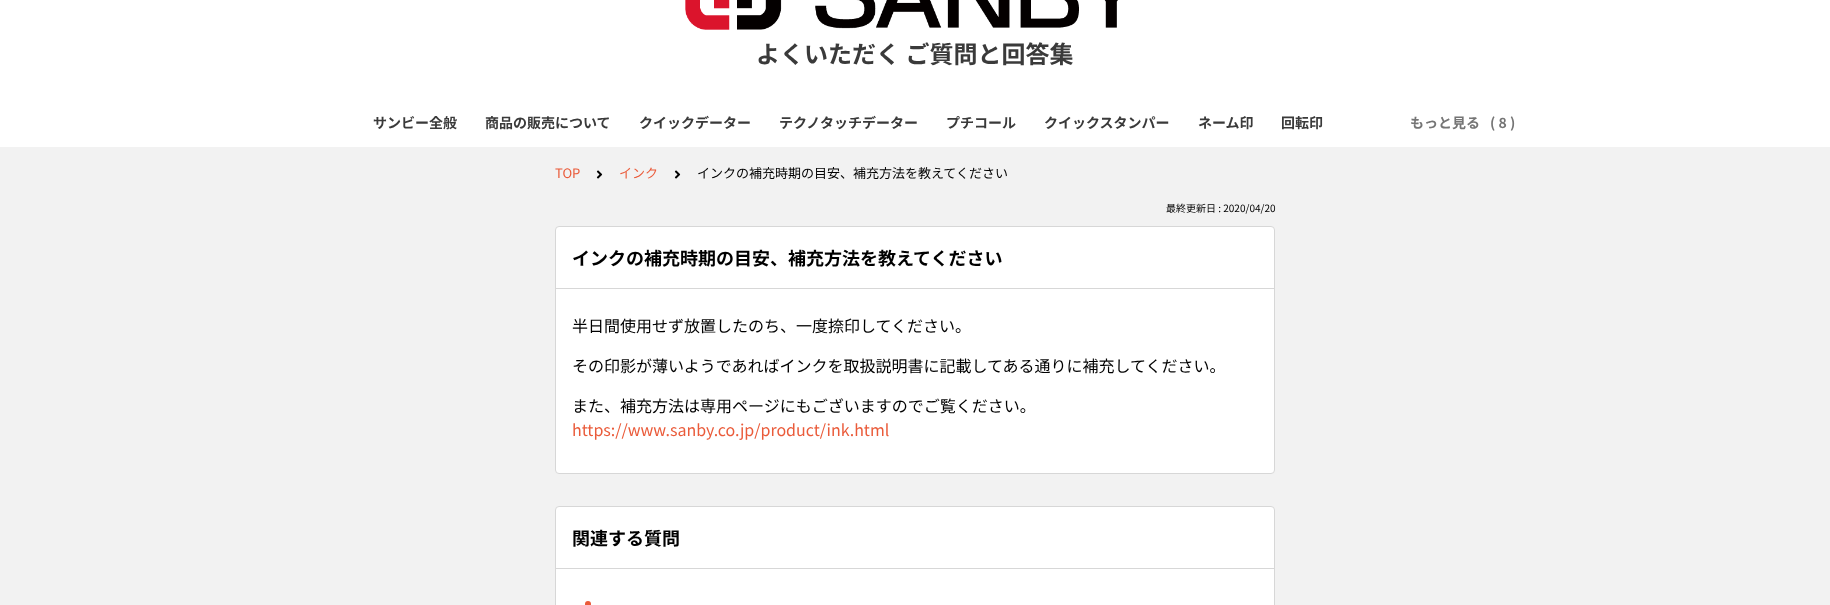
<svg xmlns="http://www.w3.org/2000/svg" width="1830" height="605">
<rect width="100%" height="100%" fill="#f2f2f2"/>
<rect width="1830" height="147" fill="#fff"/>
<image x="685" y="0" width="433" height="30" href="media/1.png"/>
<text x="756" y="63" style="font-family:Noto Sans JP;font-size:24px;font-weight:bold;fill:#3a3a3a">よくいただく ご質問と回答集</text>
<text x="373" y="128" style="font-family:Noto Sans JP;font-size:14px;font-weight:bold;fill:#3a3a3a">サンビー全般</text>
<text x="485" y="128" style="font-family:Noto Sans JP;font-size:14px;font-weight:bold;fill:#3a3a3a">商品の販売について</text>
<text x="639" y="128" style="font-family:Noto Sans JP;font-size:14px;font-weight:bold;fill:#3a3a3a">クイックデーター</text>
<text x="779" y="128" style="font-family:Noto Sans JP;font-size:14px;font-weight:bold;fill:#3a3a3a">テクノタッチデーター</text>
<text x="946" y="128" style="font-family:Noto Sans JP;font-size:14px;font-weight:bold;fill:#3a3a3a">プチコール</text>
<text x="1044" y="128" style="font-family:Noto Sans JP;font-size:14px;font-weight:bold;fill:#3a3a3a">クイックスタンパー</text>
<text x="1198" y="128" style="font-family:Noto Sans JP;font-size:14px;font-weight:bold;fill:#3a3a3a">ネーム印</text>
<text x="1281" y="128" style="font-family:Noto Sans JP;font-size:14px;font-weight:bold;fill:#3a3a3a">回転印</text>
<text x="1410" y="128" style="font-family:Noto Sans JP;font-size:14px;font-weight:bold;fill:#757575">もっと見る</text>
<text x="1490" y="128" style="font-family:Noto Sans JP;font-size:14px;font-weight:bold;fill:#757575">( 8 )</text>
<text x="555" y="178" style="font-family:Noto Sans JP;font-size:13px;fill:#ea5b3a">TOP</text>
<image x="596" y="170" width="7" height="9" href="media/2.png"/>
<text x="619" y="178" style="font-family:Noto Sans JP;font-size:13px;fill:#ea5b3a">インク</text>
<image x="674" y="170" width="7" height="9" href="media/2.png"/>
<text x="697" y="178" style="font-family:Noto Sans JP;font-size:13px;fill:#000">インクの補充時期の目安、補充方法を教えてください</text>
<text x="1166" y="212" style="font-family:Noto Sans JP;font-size:10px;fill:#000">最終更新日 : 2020/04/20</text>
<rect x="555.5" y="226.5" width="719" height="247" rx="3.5" fill="#fff" stroke="#d7d7d7"/>
<rect x="556" y="288" width="718" height="1" fill="#d7d7d7"/>
<text x="572" y="265" style="font-family:Noto Sans JP;font-size:18px;font-weight:bold;fill:#000">インクの補充時期の目安、補充方法を教えてください</text>
<text x="572" y="332" style="font-family:Noto Sans JP;font-size:16px;fill:#000">半日間使用せず放置したのち、一度捺印してください。</text>
<text x="572" y="372" style="font-family:Noto Sans JP;font-size:16px;fill:#000">その印影が薄いようであればインクを取扱説明書に記載してある通りに補充してください。</text>
<text x="572" y="412" style="font-family:Noto Sans JP;font-size:16px;fill:#000">また、補充方法は専用ページにもございますのでご覧ください。</text>
<text x="572" y="436" style="font-family:Noto Sans JP;font-size:16px;fill:#ea5b3a">https://www.sanby.co.jp/product/ink.html</text>
<rect x="555.5" y="506.5" width="719" height="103" rx="3.5" fill="#fff" stroke="#d7d7d7"/>
<rect x="556" y="568" width="718" height="1" fill="#d7d7d7"/>
<text x="572" y="545" style="font-family:Noto Sans JP;font-size:18px;font-weight:bold;fill:#000">関連する質問</text>
<circle cx="588" cy="604" r="3" fill="#ea5b3a"/>
</svg>
